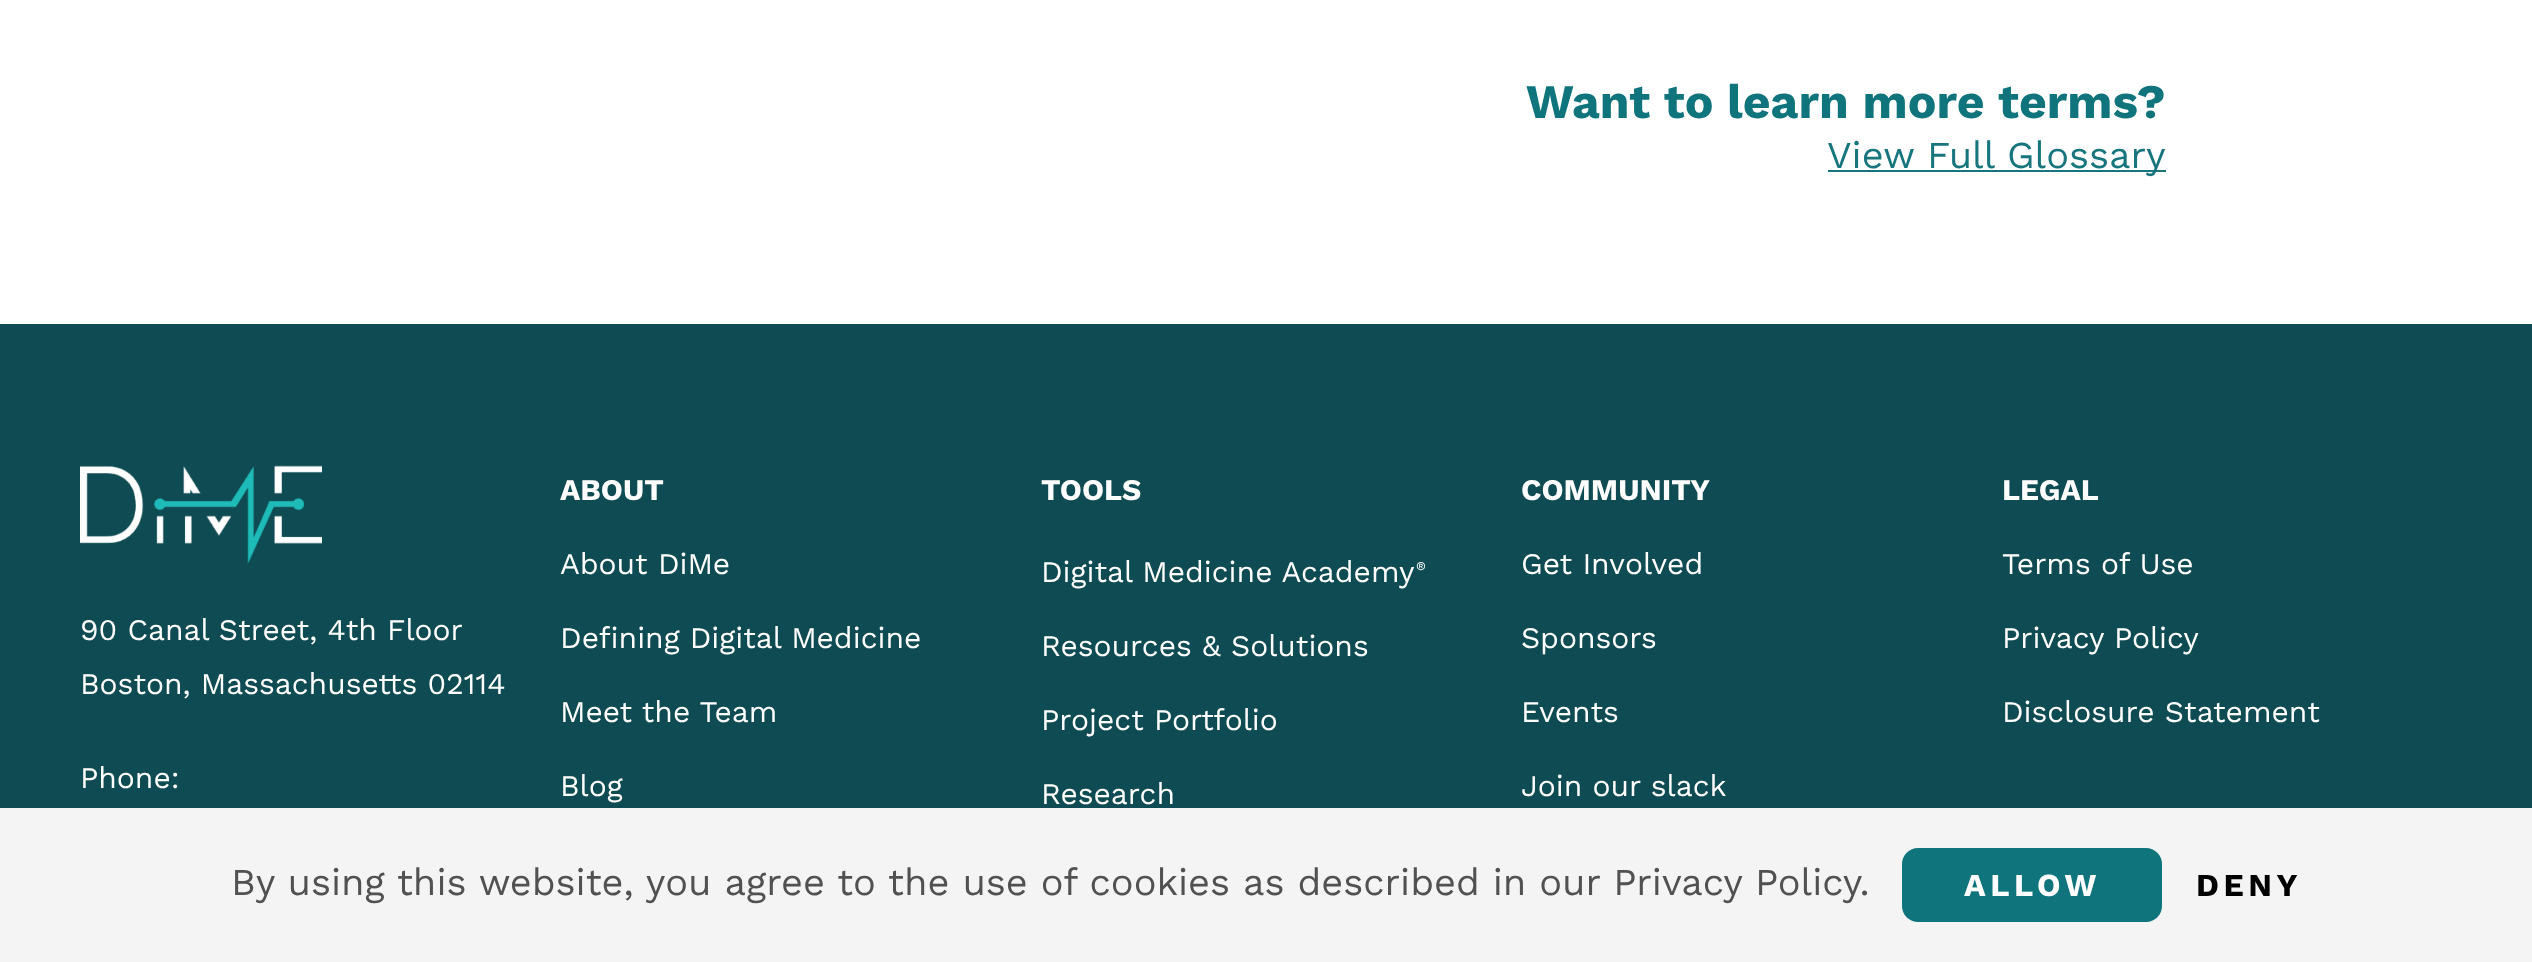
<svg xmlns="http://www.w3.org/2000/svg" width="2532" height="962">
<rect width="100%" height="100%" fill="#fff"/>
<text x="1526" y="118" style="font-family:Work Sans;font-size:48px;font-weight:bold;fill:#0f747c">Want to learn more terms?</text>
<rect x="1828" y="170" width="338" height="2" fill="#16757d"/>
<text x="1827" y="168" style="font-family:Work Sans;font-size:38px;fill:#16757d">View Full Glossary</text>
<rect y="324" width="2532" height="484" fill="#0f4b52"/>
<image x="80" y="465" width="242" height="99" href="media/1.png"/>
<text x="80" y="640" style="font-family:Work Sans;font-size:30px;fill:#fff">90 Canal Street, 4th Floor</text>
<text x="80" y="694" style="font-family:Work Sans;font-size:30px;fill:#fff">Boston, Massachusetts 02114</text>
<text x="80" y="788" style="font-family:Work Sans;font-size:30px;fill:#fff">Phone:</text>
<text x="560" y="500" style="font-family:Work Sans;font-size:30px;font-weight:bold;fill:#fff">ABOUT</text>
<text x="560" y="574" style="font-family:Work Sans;font-size:30px;fill:#fff">About DiMe</text>
<text x="560" y="648" style="font-family:Work Sans;font-size:30px;fill:#fff">Defining Digital Medicine</text>
<text x="560" y="722" style="font-family:Work Sans;font-size:30px;fill:#fff">Meet the Team</text>
<text x="560" y="796" style="font-family:Work Sans;font-size:30px;fill:#fff">Blog</text>
<text x="1041" y="500" style="font-family:Work Sans;font-size:30px;font-weight:bold;fill:#fff">TOOLS</text>
<text x="1041" y="582" style="font-family:Work Sans;font-size:30px;fill:#fff">Digital Medicine Academy</text>
<text x="1416" y="570" style="font-family:Work Sans;font-size:12px;fill:#fff">®</text>
<text x="1041" y="656" style="font-family:Work Sans;font-size:30px;fill:#fff">Resources &amp; Solutions</text>
<text x="1041" y="730" style="font-family:Work Sans;font-size:30px;fill:#fff">Project Portfolio</text>
<text x="1041" y="804" style="font-family:Work Sans;font-size:30px;fill:#fff">Research</text>
<text x="1521" y="500" style="font-family:Work Sans;font-size:30px;font-weight:bold;fill:#fff">COMMUNITY</text>
<text x="1521" y="574" style="font-family:Work Sans;font-size:30px;fill:#fff">Get Involved</text>
<text x="1521" y="648" style="font-family:Work Sans;font-size:30px;fill:#fff">Sponsors</text>
<text x="1521" y="722" style="font-family:Work Sans;font-size:30px;fill:#fff">Events</text>
<text x="1521" y="796" style="font-family:Work Sans;font-size:30px;fill:#fff">Join our slack</text>
<text x="2002" y="500" style="font-family:Work Sans;font-size:30px;font-weight:bold;fill:#fff">LEGAL</text>
<text x="2002" y="574" style="font-family:Work Sans;font-size:30px;fill:#fff">Terms of Use</text>
<text x="2002" y="648" style="font-family:Work Sans;font-size:30px;fill:#fff">Privacy Policy</text>
<text x="2002" y="722" style="font-family:Work Sans;font-size:30px;fill:#fff">Disclosure Statement</text>
<rect y="808" width="2532" height="154" fill="#f4f4f4"/>
<text x="231" y="895" style="font-family:Work Sans;font-size:38px;fill:#505150">By using this website, you agree to the use of cookies as described in our Privacy Policy.</text>
<rect x="1902" y="848" width="260" height="74" rx="16" fill="#0f747c"/>
<text x="1964" y="896" style="font-family:Work Sans;font-size:32px;font-weight:bold;letter-spacing:4.5px;fill:#fff">ALLOW</text>
<text x="2196" y="896" style="font-family:Work Sans;font-size:32px;font-weight:bold;letter-spacing:4.5px;fill:#000">DENY</text>
</svg>
